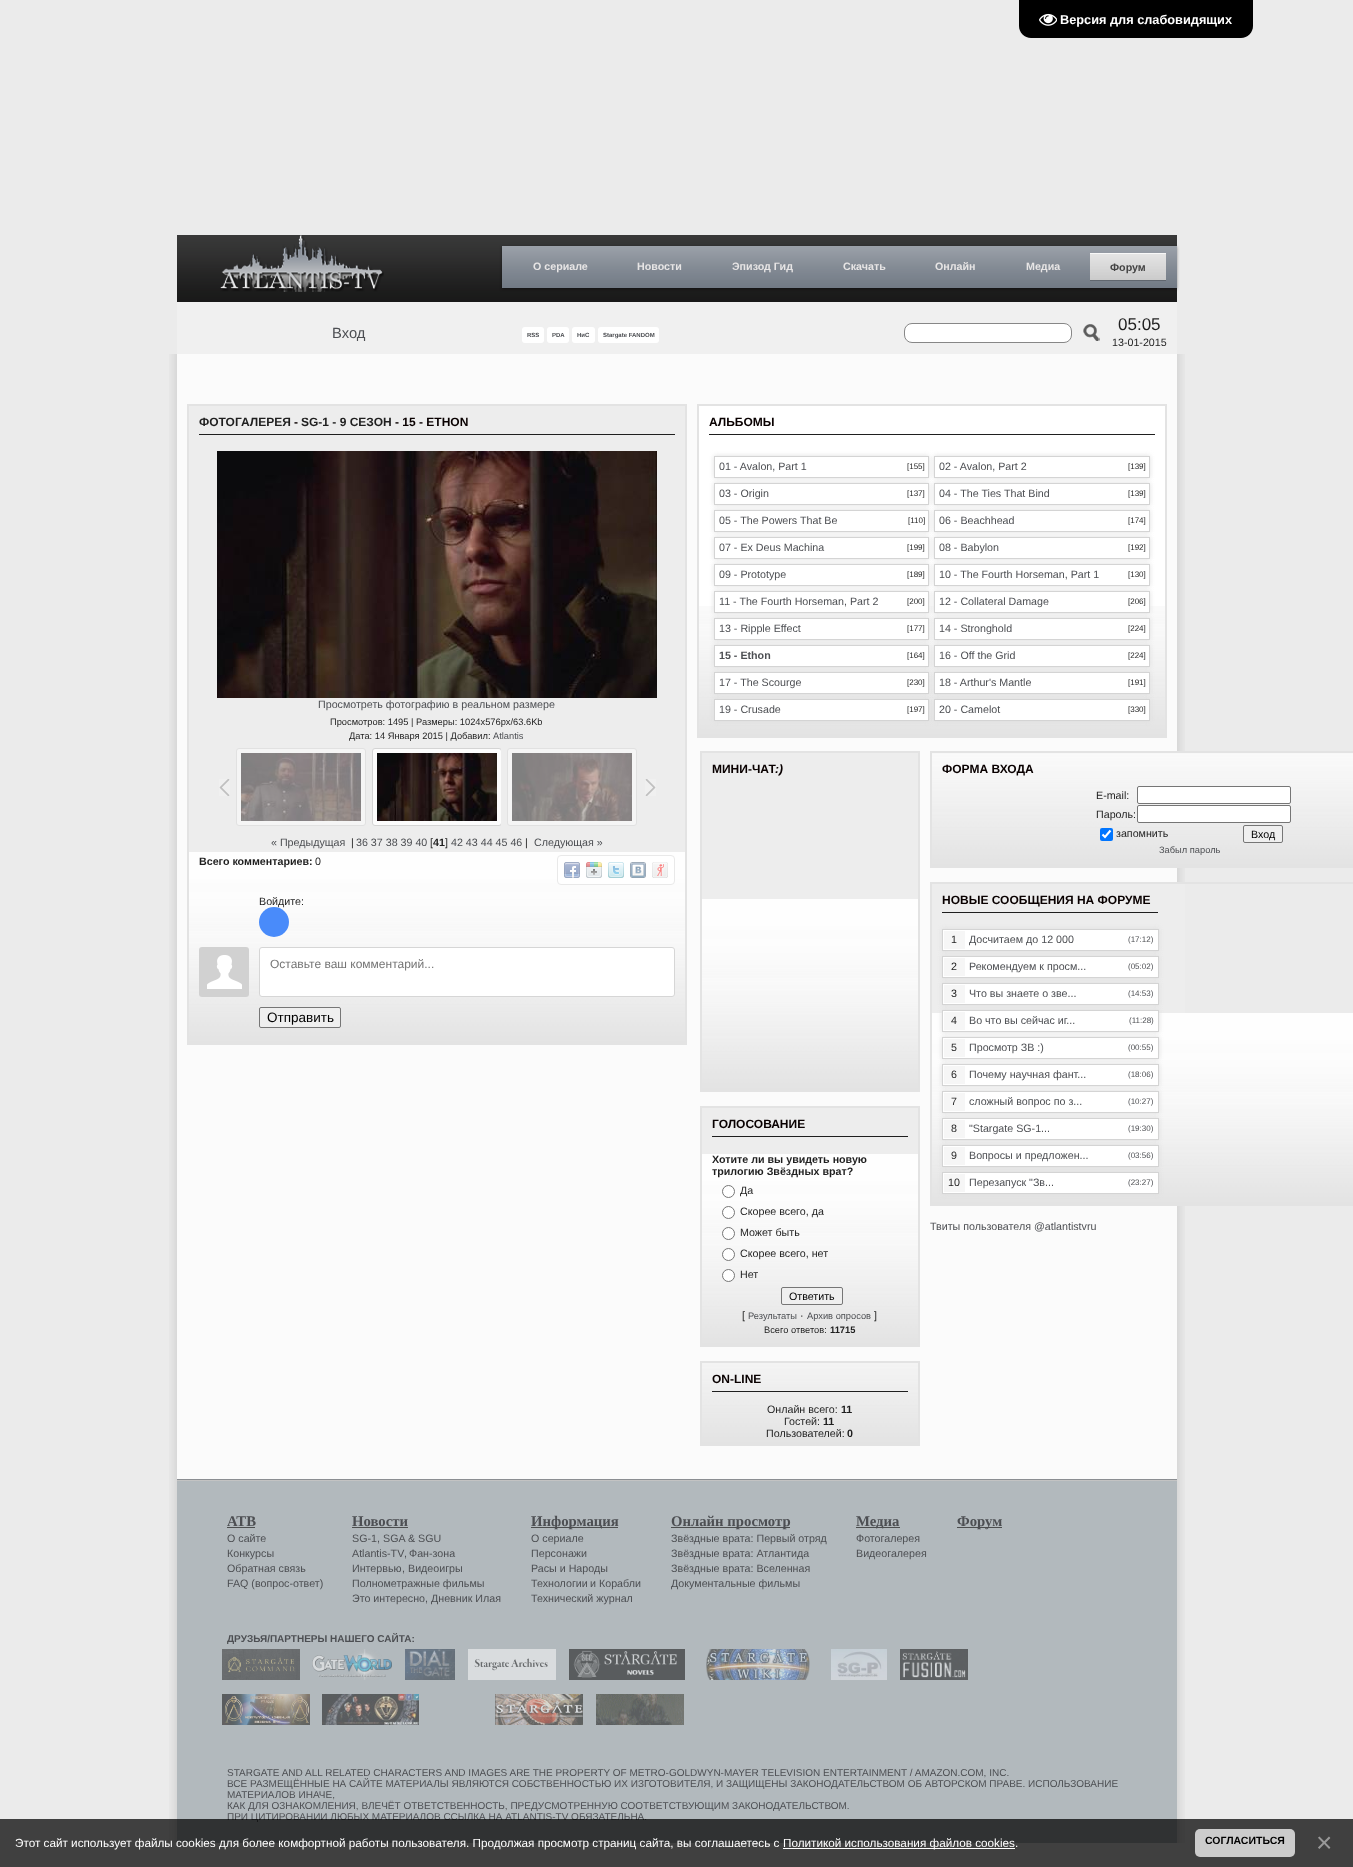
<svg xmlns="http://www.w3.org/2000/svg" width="1353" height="1867">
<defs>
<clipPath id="clip1"><rect x="372" y="748" width="129" height="78"/></clipPath>
<clipPath id="clip2"><path d="M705 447h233v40h-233zm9 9h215v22h-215z" clip-rule="evenodd"/></clipPath>
<clipPath id="clip3"><path d="M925 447h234v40h-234zm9 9h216v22h-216z" clip-rule="evenodd"/></clipPath>
<clipPath id="clip4"><path d="M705 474h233v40h-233zm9 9h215v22h-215z" clip-rule="evenodd"/></clipPath>
<clipPath id="clip5"><path d="M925 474h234v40h-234zm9 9h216v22h-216z" clip-rule="evenodd"/></clipPath>
<clipPath id="clip6"><path d="M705 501h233v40h-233zm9 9h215v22h-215z" clip-rule="evenodd"/></clipPath>
<clipPath id="clip7"><path d="M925 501h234v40h-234zm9 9h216v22h-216z" clip-rule="evenodd"/></clipPath>
<clipPath id="clip8"><path d="M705 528h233v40h-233zm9 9h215v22h-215z" clip-rule="evenodd"/></clipPath>
<clipPath id="clip9"><path d="M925 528h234v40h-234zm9 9h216v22h-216z" clip-rule="evenodd"/></clipPath>
<clipPath id="clip10"><path d="M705 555h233v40h-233zm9 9h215v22h-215z" clip-rule="evenodd"/></clipPath>
<clipPath id="clip11"><path d="M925 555h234v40h-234zm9 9h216v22h-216z" clip-rule="evenodd"/></clipPath>
</defs>
<rect width="100%" height="100%" fill="#ebebeb"/>
<path d="M1019 0h234v26c0 6.5-5.5 12-12 12h-210c-6.5 0-12-5.5-12-12z" fill="#000"/>
<image x="1039" y="13" width="18" height="13" href="media/1.png"/>
<text x="1060" y="24" style="font-family:Liberation Sans;font-size:12.75px;font-weight:bold;fill:#fff">Версия для слабовидящих</text>
<image x="177" y="235" width="1000" height="67" href="media/2.png"/>
<image x="220" y="235" width="164" height="57" href="media/3.png"/>
<rect x="502" y="247" width="675" height="42" fill="#00000066" filter="blur(1.5px)"/>
<rect x="502" y="246" width="675" height="42" fill="#67707c"/>
<image x="502" y="246" width="675" height="42" href="media/4.png"/>
<text x="533" y="270" style="font-family:Liberation Sans;font-size:10.7px;font-weight:bold;fill:#e7e5e5">О сериале</text>
<text x="637" y="270" style="font-family:Liberation Sans;font-size:10.7px;font-weight:bold;fill:#e7e5e5">Новости</text>
<text x="732" y="270" style="font-family:Liberation Sans;font-size:10.7px;font-weight:bold;fill:#e7e5e5">Эпизод Гид</text>
<text x="843" y="270" style="font-family:Liberation Sans;font-size:10.7px;font-weight:bold;fill:#e7e5e5">Скачать</text>
<text x="935" y="270" style="font-family:Liberation Sans;font-size:10.7px;font-weight:bold;fill:#e7e5e5">Онлайн</text>
<text x="1026" y="270" style="font-family:Liberation Sans;font-size:10.7px;font-weight:bold;fill:#e7e5e5">Медиа</text>
<rect x="1090" y="254" width="76" height="27" fill="#00000033" filter="blur(0.5px)"/>
<rect x="1090" y="254" width="76" height="26" fill="#666"/>
<image x="1090" y="254" width="76" height="26" href="media/5.png"/>
<rect x="1090" y="253" width="76" height="1" fill="#f8f8f8"/>
<text x="1110" y="271" style="font-family:Liberation Sans;font-size:10.7px;font-weight:bold;fill:#444">Форум</text>
<rect x="177" y="302" width="1000" height="52" fill="#f0f0f0"/>
<text x="332" y="338" style="font-family:Liberation Sans;font-size:14.75px;fill:#4d4f53">Вход</text>
<rect x="522" y="327" width="22" height="16" rx="3" fill="#fff"/>
<text x="527" y="337" style="font-family:Liberation Sans;font-size:6px;font-weight:bold;fill:#4d4f53">RSS</text>
<rect x="547" y="327" width="22" height="16" rx="3" fill="#fff"/>
<text x="552" y="337" style="font-family:Liberation Sans;font-size:6px;font-weight:bold;fill:#4d4f53">PDA</text>
<rect x="572" y="327" width="23" height="16" rx="3" fill="#fff"/>
<text x="577" y="337" style="font-family:Liberation Sans;font-size:6px;font-weight:bold;fill:#4d4f53">НиС</text>
<rect x="598" y="327" width="61" height="16" rx="3" fill="#fff"/>
<text x="603" y="337" style="font-family:Liberation Sans;font-size:6px;font-weight:bold;fill:#4d4f53">Stargate FANDOM</text>
<rect x="904.5" y="323.5" width="167" height="19" rx="7.5" fill="#fff" stroke="#878787"/>
<image x="1083" y="324" width="17" height="17" href="media/6.png"/>
<text x="1118" y="330" style="font-family:Liberation Sans;font-size:17px;fill:#1f1f1f">05:05</text>
<text x="1112" y="346" style="font-family:Liberation Sans;font-size:10.7px;fill:#1f1f1f">13-01-2015</text>
<image x="169" y="354" width="8" height="1489" href="media/7.png"/>
<image x="1177" y="354" width="8" height="1489" href="media/8.png"/>
<rect x="177" y="354" width="1000" height="1125" fill="#fbfbfb"/>
<rect x="189" y="406" width="496" height="446" fill="#ededed"/>
<image x="189" y="852" width="496" height="191" href="media/9.png"/>
<rect x="188" y="405" width="498" height="639" fill="none" stroke="#e3e3e3" stroke-width="2"/>
<text x="199" y="426" style="font-family:Liberation Sans;font-size:12px;font-weight:bold;fill:#1f1f1f">ФОТОГАЛЕРЕЯ</text>
<text x="294" y="426" style="font-family:Liberation Sans;font-size:12px;font-weight:bold;fill:#090000">-</text>
<text x="301" y="426" style="font-family:Liberation Sans;font-size:12px;font-weight:bold;fill:#1f1f1f">SG-1 - 9 СЕЗОН</text>
<text x="395" y="426" style="font-family:Liberation Sans;font-size:12px;font-weight:bold;fill:#090000">- 15 - ETHON</text>
<rect x="199" y="434" width="476" height="1" fill="#1f1f1f"/>
<image x="217" y="451" width="440" height="247" href="media/10.png"/>
<text x="318" y="708" style="font-family:Liberation Sans;font-size:10.7px;fill:#4d4f53">Просмотреть фотографию в реальном размере</text>
<text x="330" y="725" style="font-family:Liberation Sans;font-size:9.3px;fill:#1f1f1f">Просмотров: 1495 | Размеры: 1024x576px/63.6Kb</text>
<text x="349" y="739" style="font-family:Liberation Sans;font-size:9.3px;fill:#1f1f1f">Дата: 14 Января 2015 | Добавил:</text>
<text x="493" y="739" style="font-family:Liberation Sans;font-size:9.3px;fill:#4d4f53">Atlantis</text>
<image x="219" y="779" width="11" height="17" href="media/11.png"/>
<rect x="236.5" y="748.5" width="129" height="77" rx="2.5" fill="#f5f5f5" stroke="#e1e1e1"/>
<image x="241" y="753" width="120" height="68" href="media/12.png"/>
<g clip-path="url(#clip1)">
<rect x="372.5" y="748.5" width="129" height="77" rx="2.5" fill="#fcfcfc" stroke="#d4d4d4"/>
</g>
<image x="377" y="753" width="120" height="68" href="media/13.png"/>
<rect x="507.5" y="748.5" width="129" height="77" rx="2.5" fill="#f5f5f5" stroke="#e1e1e1"/>
<image x="512" y="753" width="120" height="68" href="media/14.png"/>
<image x="645" y="779" width="11" height="17" href="media/15.png"/>
<text x="271" y="846" style="font-family:Liberation Sans;font-size:10.7px;fill:#4d4f53">« Предыдущая</text>
<text x="351" y="846" style="font-family:Liberation Sans;font-size:10.7px;fill:#1f1f1f">|</text>
<text x="356" y="846" style="font-family:Liberation Sans;font-size:10.7px;fill:#4d4f53">36 37 38 39 40</text>
<text x="430" y="846" style="font-family:Liberation Sans;font-size:10.7px;fill:#1f1f1f">[</text>
<text x="433" y="846" style="font-family:Liberation Sans;font-size:10.7px;font-weight:bold;fill:#1f1f1f">41</text>
<text x="445" y="846" style="font-family:Liberation Sans;font-size:10.7px;fill:#1f1f1f">]</text>
<text x="451" y="846" style="font-family:Liberation Sans;font-size:10.7px;fill:#4d4f53">42 43 44 45 46</text>
<text x="525" y="846" style="font-family:Liberation Sans;font-size:10.7px;fill:#1f1f1f">|</text>
<text x="534" y="846" style="font-family:Liberation Sans;font-size:10.7px;fill:#4d4f53">Следующая »</text>
<text x="199" y="865" style="font-family:Liberation Sans;font-size:10.7px;font-weight:bold;fill:#1f1f1f">Всего комментариев:</text>
<text x="315" y="865" style="font-family:Liberation Sans;font-size:10.7px;fill:#1f1f1f">0</text>
<rect x="557.5" y="855.5" width="117" height="29" rx="3.5" fill="#fff" stroke="#e9e9e9"/>
<image x="564" y="862" width="16" height="16" href="media/16.png"/>
<image x="586" y="862" width="16" height="16" href="media/17.png"/>
<image x="608" y="862" width="16" height="16" href="media/18.png"/>
<image x="630" y="862" width="16" height="16" href="media/19.png"/>
<image x="652" y="862" width="16" height="16" href="media/20.png"/>
<text x="259" y="905" style="font-family:Liberation Sans;font-size:10.7px;fill:#1f1f1f">Войдите:</text>
<circle cx="274" cy="922" r="15" fill="#498bfa"/>
<image x="199" y="947" width="50" height="50" href="media/21.png"/>
<rect x="259.5" y="947.5" width="415" height="49" rx="2.5" fill="#fff" stroke="#d6d6d6"/>
<text x="270" y="968" style="font-family:Liberation Sans;font-size:12px;fill:#757575">Оставьте ваш комментарий...</text>
<rect x="259.5" y="1007.5" width="81" height="20" rx="1.5" fill="#efefef" stroke="#767676"/>
<text x="267" y="1022" style="font-family:Liberation Sans;font-size:13.5px;fill:#000">Отправить</text>
<rect x="699" y="406" width="466" height="200" fill="#fff"/>
<image x="699" y="606" width="466" height="130" href="media/22.png"/>
<rect x="698" y="405" width="468" height="332" fill="none" stroke="#e3e3e3" stroke-width="2"/>
<text x="709" y="426" style="font-family:Liberation Sans;font-size:12px;font-weight:bold;fill:#090000">АЛЬБОМЫ</text>
<rect x="709" y="434" width="446" height="1" fill="#1f1f1f"/>
<g clip-path="url(#clip2)">
<rect x="714" y="456" width="215" height="22" fill="#ddd" filter="blur(2.5px)"/>
</g>
<rect x="714.5" y="456.5" width="214" height="21" fill="none" stroke="#d4d4d4"/>
<text x="719" y="470" style="font-family:Liberation Sans;font-size:10.7px;fill:#4d4f53">01 - Avalon, Part 1</text>
<text x="907" y="469" style="font-family:Liberation Sans;font-size:8px;fill:#1f1f1f">[155]</text>
<g clip-path="url(#clip3)">
<rect x="934" y="456" width="216" height="22" fill="#ddd" filter="blur(2.5px)"/>
</g>
<rect x="934.5" y="456.5" width="215" height="21" fill="none" stroke="#d4d4d4"/>
<text x="939" y="470" style="font-family:Liberation Sans;font-size:10.7px;fill:#4d4f53">02 - Avalon, Part 2</text>
<text x="1128" y="469" style="font-family:Liberation Sans;font-size:8px;fill:#1f1f1f">[139]</text>
<g clip-path="url(#clip4)">
<rect x="714" y="483" width="215" height="22" fill="#ddd" filter="blur(2.5px)"/>
</g>
<rect x="714.5" y="483.5" width="214" height="21" fill="none" stroke="#d4d4d4"/>
<text x="719" y="497" style="font-family:Liberation Sans;font-size:10.7px;fill:#4d4f53">03 - Origin</text>
<text x="907" y="496" style="font-family:Liberation Sans;font-size:8px;fill:#1f1f1f">[137]</text>
<g clip-path="url(#clip5)">
<rect x="934" y="483" width="216" height="22" fill="#ddd" filter="blur(2.5px)"/>
</g>
<rect x="934.5" y="483.5" width="215" height="21" fill="none" stroke="#d4d4d4"/>
<text x="939" y="497" style="font-family:Liberation Sans;font-size:10.7px;fill:#4d4f53">04 - The Ties That Bind</text>
<text x="1128" y="496" style="font-family:Liberation Sans;font-size:8px;fill:#1f1f1f">[139]</text>
<g clip-path="url(#clip6)">
<rect x="714" y="510" width="215" height="22" fill="#ddd" filter="blur(2.5px)"/>
</g>
<rect x="714.5" y="510.5" width="214" height="21" fill="none" stroke="#d4d4d4"/>
<text x="719" y="524" style="font-family:Liberation Sans;font-size:10.7px;fill:#4d4f53">05 - The Powers That Be</text>
<text x="908" y="523" style="font-family:Liberation Sans;font-size:8px;fill:#1f1f1f">[110]</text>
<g clip-path="url(#clip7)">
<rect x="934" y="510" width="216" height="22" fill="#ddd" filter="blur(2.5px)"/>
</g>
<rect x="934.5" y="510.5" width="215" height="21" fill="none" stroke="#d4d4d4"/>
<text x="939" y="524" style="font-family:Liberation Sans;font-size:10.7px;fill:#4d4f53">06 - Beachhead</text>
<text x="1128" y="523" style="font-family:Liberation Sans;font-size:8px;fill:#1f1f1f">[174]</text>
<g clip-path="url(#clip8)">
<rect x="714" y="537" width="215" height="22" fill="#ddd" filter="blur(2.5px)"/>
</g>
<rect x="714.5" y="537.5" width="214" height="21" fill="none" stroke="#d4d4d4"/>
<text x="719" y="551" style="font-family:Liberation Sans;font-size:10.7px;fill:#4d4f53">07 - Ex Deus Machina</text>
<text x="907" y="550" style="font-family:Liberation Sans;font-size:8px;fill:#1f1f1f">[199]</text>
<g clip-path="url(#clip9)">
<rect x="934" y="537" width="216" height="22" fill="#ddd" filter="blur(2.5px)"/>
</g>
<rect x="934.5" y="537.5" width="215" height="21" fill="none" stroke="#d4d4d4"/>
<text x="939" y="551" style="font-family:Liberation Sans;font-size:10.7px;fill:#4d4f53">08 - Babylon</text>
<text x="1128" y="550" style="font-family:Liberation Sans;font-size:8px;fill:#1f1f1f">[192]</text>
<g clip-path="url(#clip10)">
<rect x="714" y="564" width="215" height="22" fill="#ddd" filter="blur(2.5px)"/>
</g>
<rect x="714.5" y="564.5" width="214" height="21" fill="none" stroke="#d4d4d4"/>
<text x="719" y="578" style="font-family:Liberation Sans;font-size:10.7px;fill:#4d4f53">09 - Prototype</text>
<text x="907" y="577" style="font-family:Liberation Sans;font-size:8px;fill:#1f1f1f">[189]</text>
<g clip-path="url(#clip11)">
<rect x="934" y="564" width="216" height="22" fill="#ddd" filter="blur(2.5px)"/>
</g>
<rect x="934.5" y="564.5" width="215" height="21" fill="none" stroke="#d4d4d4"/>
<text x="939" y="578" style="font-family:Liberation Sans;font-size:10.7px;fill:#4d4f53">10 - The Fourth Horseman, Part 1</text>
<text x="1128" y="577" style="font-family:Liberation Sans;font-size:8px;fill:#1f1f1f">[130]</text>
<rect x="714" y="591" width="215" height="22" fill="#ddd" filter="blur(2.5px)"/>
<rect x="714.5" y="591.5" width="214" height="21" fill="#fff" stroke="#d4d4d4"/>
<text x="719" y="605" style="font-family:Liberation Sans;font-size:10.7px;fill:#4d4f53">11 - The Fourth Horseman, Part 2</text>
<text x="907" y="604" style="font-family:Liberation Sans;font-size:8px;fill:#1f1f1f">[200]</text>
<rect x="934" y="591" width="216" height="22" fill="#ddd" filter="blur(2.5px)"/>
<rect x="934.5" y="591.5" width="215" height="21" fill="#fff" stroke="#d4d4d4"/>
<text x="939" y="605" style="font-family:Liberation Sans;font-size:10.7px;fill:#4d4f53">12 - Collateral Damage</text>
<text x="1128" y="604" style="font-family:Liberation Sans;font-size:8px;fill:#1f1f1f">[206]</text>
<rect x="714" y="618" width="215" height="22" fill="#ddd" filter="blur(2.5px)"/>
<rect x="714.5" y="618.5" width="214" height="21" fill="#fff" stroke="#d4d4d4"/>
<text x="719" y="632" style="font-family:Liberation Sans;font-size:10.7px;fill:#4d4f53">13 - Ripple Effect</text>
<text x="907" y="631" style="font-family:Liberation Sans;font-size:8px;fill:#1f1f1f">[177]</text>
<rect x="934" y="618" width="216" height="22" fill="#ddd" filter="blur(2.5px)"/>
<rect x="934.5" y="618.5" width="215" height="21" fill="#fff" stroke="#d4d4d4"/>
<text x="939" y="632" style="font-family:Liberation Sans;font-size:10.7px;fill:#4d4f53">14 - Stronghold</text>
<text x="1128" y="631" style="font-family:Liberation Sans;font-size:8px;fill:#1f1f1f">[224]</text>
<rect x="714" y="645" width="215" height="22" fill="#ddd" filter="blur(2.5px)"/>
<rect x="714.5" y="645.5" width="214" height="21" fill="#fff" stroke="#d4d4d4"/>
<text x="719" y="659" style="font-family:Liberation Sans;font-size:10.7px;font-weight:bold;fill:#4d4f53">15 - Ethon</text>
<text x="907" y="658" style="font-family:Liberation Sans;font-size:8px;fill:#1f1f1f">[164]</text>
<rect x="934" y="645" width="216" height="22" fill="#ddd" filter="blur(2.5px)"/>
<rect x="934.5" y="645.5" width="215" height="21" fill="#fff" stroke="#d4d4d4"/>
<text x="939" y="659" style="font-family:Liberation Sans;font-size:10.7px;fill:#4d4f53">16 - Off the Grid</text>
<text x="1128" y="658" style="font-family:Liberation Sans;font-size:8px;fill:#1f1f1f">[224]</text>
<rect x="714" y="672" width="215" height="22" fill="#ddd" filter="blur(2.5px)"/>
<rect x="714.5" y="672.5" width="214" height="21" fill="#fff" stroke="#d4d4d4"/>
<text x="719" y="686" style="font-family:Liberation Sans;font-size:10.7px;fill:#4d4f53">17 - The Scourge</text>
<text x="907" y="685" style="font-family:Liberation Sans;font-size:8px;fill:#1f1f1f">[230]</text>
<rect x="934" y="672" width="216" height="22" fill="#ddd" filter="blur(2.5px)"/>
<rect x="934.5" y="672.5" width="215" height="21" fill="#fff" stroke="#d4d4d4"/>
<text x="939" y="686" style="font-family:Liberation Sans;font-size:10.7px;fill:#4d4f53">18 - Arthur's Mantle</text>
<text x="1128" y="685" style="font-family:Liberation Sans;font-size:8px;fill:#1f1f1f">[191]</text>
<rect x="714" y="699" width="215" height="22" fill="#ddd" filter="blur(2.5px)"/>
<rect x="714.5" y="699.5" width="214" height="21" fill="#fff" stroke="#d4d4d4"/>
<text x="719" y="713" style="font-family:Liberation Sans;font-size:10.7px;fill:#4d4f53">19 - Crusade</text>
<text x="907" y="712" style="font-family:Liberation Sans;font-size:8px;fill:#1f1f1f">[197]</text>
<rect x="934" y="699" width="216" height="22" fill="#ddd" filter="blur(2.5px)"/>
<rect x="934.5" y="699.5" width="215" height="21" fill="#fff" stroke="#d4d4d4"/>
<text x="939" y="713" style="font-family:Liberation Sans;font-size:10.7px;fill:#4d4f53">20 - Camelot</text>
<text x="1128" y="712" style="font-family:Liberation Sans;font-size:8px;fill:#1f1f1f">[330]</text>
<rect x="702" y="753" width="216" height="146" fill="#ededed"/>
<image x="702" y="899" width="216" height="191" href="media/23.png"/>
<rect x="701" y="752" width="218" height="339" fill="none" stroke="#e3e3e3" stroke-width="2"/>
<text x="712" y="773" style="font-family:Liberation Sans;font-size:12px;font-weight:bold;fill:#090000">МИНИ-ЧАТ</text>
<text x="775" y="773" style="font-family:Liberation Sans;font-size:12px;font-weight:bold;font-style:italic;fill:#090000">:)</text>
<rect x="702" y="1108" width="216" height="46" fill="#ededed"/>
<image x="702" y="1154" width="216" height="191" href="media/23.png"/>
<rect x="701" y="1107" width="218" height="239" fill="none" stroke="#e3e3e3" stroke-width="2"/>
<text x="712" y="1128" style="font-family:Liberation Sans;font-size:12px;font-weight:bold;fill:#090000">ГОЛОСОВАНИЕ</text>
<rect x="712" y="1136" width="196" height="1" fill="#1f1f1f"/>
<text x="712" y="1163" style="font-family:Liberation Sans;font-size:10.7px;font-weight:bold;fill:#1f1f1f">Хотите ли вы увидеть новую</text>
<text x="712" y="1175" style="font-family:Liberation Sans;font-size:10.7px;font-weight:bold;fill:#1f1f1f">трилогию Звёздных врат?</text>
<circle cx="728.5" cy="1191.5" r="6" fill="#fff" stroke="#767676"/>
<text x="740" y="1194" style="font-family:Liberation Sans;font-size:10.7px;fill:#1f1f1f">Да</text>
<circle cx="728.5" cy="1212.5" r="6" fill="#fff" stroke="#767676"/>
<text x="740" y="1215" style="font-family:Liberation Sans;font-size:10.7px;fill:#1f1f1f">Скорее всего, да</text>
<circle cx="728.5" cy="1233.5" r="6" fill="#fff" stroke="#767676"/>
<text x="740" y="1236" style="font-family:Liberation Sans;font-size:10.7px;fill:#1f1f1f">Может быть</text>
<circle cx="728.5" cy="1254.5" r="6" fill="#fff" stroke="#767676"/>
<text x="740" y="1257" style="font-family:Liberation Sans;font-size:10.7px;fill:#1f1f1f">Скорее всего, нет</text>
<circle cx="728.5" cy="1275.5" r="6" fill="#fff" stroke="#767676"/>
<text x="740" y="1278" style="font-family:Liberation Sans;font-size:10.7px;fill:#1f1f1f">Нет</text>
<rect x="781.5" y="1287.5" width="61" height="17" rx="1.5" fill="#efefef" stroke="#767676"/>
<text x="789" y="1300" style="font-family:Liberation Sans;font-size:10.7px;fill:#000">Ответить</text>
<text x="742" y="1319" style="font-family:Liberation Sans;font-size:10.7px;fill:#1f1f1f">[</text>
<text x="748" y="1319" style="font-family:Liberation Sans;font-size:9.3px;fill:#4d4f53">Результаты</text>
<text x="800" y="1319" style="font-family:Liberation Sans;font-size:10.7px;fill:#1f1f1f">·</text>
<text x="807" y="1319" style="font-family:Liberation Sans;font-size:9.3px;fill:#4d4f53">Архив опросов</text>
<text x="874" y="1319" style="font-family:Liberation Sans;font-size:10.7px;fill:#1f1f1f">]</text>
<text x="764" y="1333" style="font-family:Liberation Sans;font-size:9.3px;fill:#1f1f1f">Всего ответов:</text>
<text x="830" y="1333" style="font-family:Liberation Sans;font-size:9.3px;font-weight:bold;fill:#1f1f1f">11715</text>
<image x="702" y="1363" width="216" height="81" href="media/24.png"/>
<rect x="701" y="1362" width="218" height="83" fill="none" stroke="#e3e3e3" stroke-width="2"/>
<text x="712" y="1383" style="font-family:Liberation Sans;font-size:12px;font-weight:bold;fill:#090000">ON-LINE</text>
<rect x="712" y="1391" width="196" height="1" fill="#1f1f1f"/>
<text x="767" y="1413" style="font-family:Liberation Sans;font-size:10.7px;fill:#1f1f1f">Онлайн всего:</text>
<text x="841" y="1413" style="font-family:Liberation Sans;font-size:10.7px;font-weight:bold;fill:#1f1f1f">11</text>
<text x="784" y="1425" style="font-family:Liberation Sans;font-size:10.7px;fill:#1f1f1f">Гостей:</text>
<text x="823" y="1425" style="font-family:Liberation Sans;font-size:10.7px;font-weight:bold;fill:#1f1f1f">11</text>
<text x="766" y="1437" style="font-family:Liberation Sans;font-size:10.7px;fill:#1f1f1f">Пользователей:</text>
<text x="847" y="1437" style="font-family:Liberation Sans;font-size:10.7px;font-weight:bold;fill:#1f1f1f">0</text>
<image x="932" y="753" width="421" height="113" href="media/25.png"/>
<rect x="931" y="752" width="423" height="115" fill="none" stroke="#e3e3e3" stroke-width="2"/>
<text x="942" y="773" style="font-family:Liberation Sans;font-size:12px;font-weight:bold;fill:#090000">ФОРМА ВХОДА</text>
<text x="1096" y="799" style="font-family:Liberation Sans;font-size:10.7px;fill:#1f1f1f">E-mail:</text>
<rect x="1137.5" y="786.5" width="153" height="17" rx="1.5" fill="#fff" stroke="#767676"/>
<text x="1096" y="818" style="font-family:Liberation Sans;font-size:10.7px;fill:#1f1f1f">Пароль:</text>
<rect x="1137.5" y="805.5" width="153" height="17" rx="1.5" fill="#fff" stroke="#767676"/>
<rect x="1100" y="828" width="13" height="13" rx="2" fill="#0075ff"/>
<path d="M1102.5 834.5l2.5 2.5l5.5-6.5" fill="none" stroke="#fff" stroke-width="2.1"/>
<text x="1116" y="837" style="font-family:Liberation Sans;font-size:10.7px;fill:#1f1f1f">запомнить</text>
<rect x="1243.5" y="825.5" width="39" height="17" rx="1.5" fill="#efefef" stroke="#767676"/>
<text x="1251" y="838" style="font-family:Liberation Sans;font-size:10.7px;fill:#000">Вход</text>
<text x="1159" y="853" style="font-family:Liberation Sans;font-size:9.3px;fill:#4d4f53">Забыл пароль</text>
<rect x="932" y="884" width="253" height="129" fill="#ededed"/>
<image x="932" y="1013" width="421" height="191" href="media/26.png"/>
<rect x="931" y="883" width="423" height="322" fill="none" stroke="#e3e3e3" stroke-width="2"/>
<text x="942" y="904" style="font-family:Liberation Sans;font-size:12px;font-weight:bold;fill:#090000">НОВЫЕ СООБЩЕНИЯ НА ФОРУМЕ</text>
<rect x="942" y="912" width="216" height="1" fill="#1f1f1f"/>
<rect x="942" y="929" width="217" height="22" fill="#ddd" filter="blur(2.5px)"/>
<rect x="966" y="930" width="192" height="20" fill="#fff"/>
<rect x="942.5" y="929.5" width="216" height="21" fill="none" stroke="#d4d4d4"/>
<rect x="942" y="956" width="217" height="22" fill="#ddd" filter="blur(2.5px)"/>
<rect x="943.5" y="930.5" width="22" height="19" fill="#f6f6f6" stroke="#fff"/>
<text x="951" y="943" style="font-family:Liberation Sans;font-size:10.7px;fill:#1f1f1f">1</text>
<text x="969" y="943" style="font-family:Liberation Sans;font-size:10.7px;fill:#4d4f53">Досчитаем до 12 000</text>
<text x="1128" y="942" style="font-family:Liberation Sans;font-size:8px;fill:#4d4f53">(17:12)</text>
<rect x="966" y="957" width="192" height="20" fill="#fff"/>
<rect x="942.5" y="956.5" width="216" height="21" fill="none" stroke="#d4d4d4"/>
<rect x="942" y="983" width="217" height="22" fill="#ddd" filter="blur(2.5px)"/>
<rect x="943.5" y="957.5" width="22" height="19" fill="#f6f6f6" stroke="#fff"/>
<text x="951" y="970" style="font-family:Liberation Sans;font-size:10.7px;fill:#1f1f1f">2</text>
<text x="969" y="970" style="font-family:Liberation Sans;font-size:10.7px;fill:#4d4f53">Рекомендуем к просм...</text>
<text x="1128" y="969" style="font-family:Liberation Sans;font-size:8px;fill:#4d4f53">(05:02)</text>
<rect x="966" y="984" width="192" height="20" fill="#fff"/>
<rect x="942.5" y="983.5" width="216" height="21" fill="none" stroke="#d4d4d4"/>
<rect x="942" y="1010" width="217" height="22" fill="#ddd" filter="blur(2.5px)"/>
<rect x="943.5" y="984.5" width="22" height="19" fill="#f6f6f6" stroke="#fff"/>
<text x="951" y="997" style="font-family:Liberation Sans;font-size:10.7px;fill:#1f1f1f">3</text>
<text x="969" y="997" style="font-family:Liberation Sans;font-size:10.7px;fill:#4d4f53">Что вы знаете о зве...</text>
<text x="1128" y="996" style="font-family:Liberation Sans;font-size:8px;fill:#4d4f53">(14:53)</text>
<rect x="966" y="1011" width="192" height="20" fill="#fff"/>
<rect x="942.5" y="1010.5" width="216" height="21" fill="none" stroke="#d4d4d4"/>
<rect x="942" y="1037" width="217" height="22" fill="#ddd" filter="blur(2.5px)"/>
<rect x="943.5" y="1011.5" width="22" height="19" fill="#f6f6f6" stroke="#fff"/>
<text x="951" y="1024" style="font-family:Liberation Sans;font-size:10.7px;fill:#1f1f1f">4</text>
<text x="969" y="1024" style="font-family:Liberation Sans;font-size:10.7px;fill:#4d4f53">Во что вы сейчас иг...</text>
<text x="1129" y="1023" style="font-family:Liberation Sans;font-size:8px;fill:#4d4f53">(11:28)</text>
<rect x="966" y="1038" width="192" height="20" fill="#fff"/>
<rect x="942.5" y="1037.5" width="216" height="21" fill="none" stroke="#d4d4d4"/>
<rect x="942" y="1064" width="217" height="22" fill="#ddd" filter="blur(2.5px)"/>
<rect x="943.5" y="1038.5" width="22" height="19" fill="#f6f6f6" stroke="#fff"/>
<text x="951" y="1051" style="font-family:Liberation Sans;font-size:10.7px;fill:#1f1f1f">5</text>
<text x="969" y="1051" style="font-family:Liberation Sans;font-size:10.7px;fill:#4d4f53">Просмотр ЗВ :)</text>
<text x="1128" y="1050" style="font-family:Liberation Sans;font-size:8px;fill:#4d4f53">(00:55)</text>
<rect x="966" y="1065" width="192" height="20" fill="#fff"/>
<rect x="942.5" y="1064.5" width="216" height="21" fill="none" stroke="#d4d4d4"/>
<rect x="942" y="1091" width="217" height="22" fill="#ddd" filter="blur(2.5px)"/>
<rect x="943.5" y="1065.5" width="22" height="19" fill="#f6f6f6" stroke="#fff"/>
<text x="951" y="1078" style="font-family:Liberation Sans;font-size:10.7px;fill:#1f1f1f">6</text>
<text x="969" y="1078" style="font-family:Liberation Sans;font-size:10.7px;fill:#4d4f53">Почему научная фант...</text>
<text x="1128" y="1077" style="font-family:Liberation Sans;font-size:8px;fill:#4d4f53">(18:06)</text>
<rect x="966" y="1092" width="192" height="20" fill="#fff"/>
<rect x="942.5" y="1091.5" width="216" height="21" fill="none" stroke="#d4d4d4"/>
<rect x="942" y="1118" width="217" height="22" fill="#ddd" filter="blur(2.5px)"/>
<rect x="943.5" y="1092.5" width="22" height="19" fill="#f6f6f6" stroke="#fff"/>
<text x="951" y="1105" style="font-family:Liberation Sans;font-size:10.7px;fill:#1f1f1f">7</text>
<text x="969" y="1105" style="font-family:Liberation Sans;font-size:10.7px;fill:#4d4f53">сложный вопрос по з...</text>
<text x="1128" y="1104" style="font-family:Liberation Sans;font-size:8px;fill:#4d4f53">(10:27)</text>
<rect x="966" y="1119" width="192" height="20" fill="#fff"/>
<rect x="942.5" y="1118.5" width="216" height="21" fill="none" stroke="#d4d4d4"/>
<rect x="942" y="1145" width="217" height="22" fill="#ddd" filter="blur(2.5px)"/>
<rect x="943.5" y="1119.5" width="22" height="19" fill="#f6f6f6" stroke="#fff"/>
<text x="951" y="1132" style="font-family:Liberation Sans;font-size:10.7px;fill:#1f1f1f">8</text>
<text x="969" y="1132" style="font-family:Liberation Sans;font-size:10.7px;fill:#4d4f53">"Stargate SG-1...</text>
<text x="1128" y="1131" style="font-family:Liberation Sans;font-size:8px;fill:#4d4f53">(19:30)</text>
<rect x="966" y="1146" width="192" height="20" fill="#fff"/>
<rect x="942.5" y="1145.5" width="216" height="21" fill="none" stroke="#d4d4d4"/>
<rect x="942" y="1172" width="217" height="22" fill="#ddd" filter="blur(2.5px)"/>
<rect x="943.5" y="1146.5" width="22" height="19" fill="#f6f6f6" stroke="#fff"/>
<text x="951" y="1159" style="font-family:Liberation Sans;font-size:10.7px;fill:#1f1f1f">9</text>
<text x="969" y="1159" style="font-family:Liberation Sans;font-size:10.7px;fill:#4d4f53">Вопросы и предложен...</text>
<text x="1128" y="1158" style="font-family:Liberation Sans;font-size:8px;fill:#4d4f53">(03:56)</text>
<rect x="966" y="1173" width="192" height="20" fill="#fff"/>
<rect x="942.5" y="1172.5" width="216" height="21" fill="none" stroke="#d4d4d4"/>
<rect x="943.5" y="1173.5" width="22" height="19" fill="#f6f6f6" stroke="#fff"/>
<text x="948" y="1186" style="font-family:Liberation Sans;font-size:10.7px;fill:#1f1f1f">10</text>
<text x="969" y="1186" style="font-family:Liberation Sans;font-size:10.7px;fill:#4d4f53">Перезапуск "Зв...</text>
<text x="1128" y="1185" style="font-family:Liberation Sans;font-size:8px;fill:#4d4f53">(23:27)</text>
<text x="930" y="1230" style="font-family:Liberation Sans;font-size:10.7px;fill:#4d4f53">Твиты пользователя @atlantistvru</text>
<rect x="177" y="1481" width="1000" height="362" fill="#b2b9bd"/>
<image x="177" y="1479" width="1000" height="2" href="media/27.png"/>
<text x="227" y="1526" style="font-family:Liberation Serif;font-size:14.75px;font-weight:bold;fill:#4d4f53">АТВ</text>
<rect x="227" y="1527" width="28" height="1" fill="#4c4e4f"/>
<text x="227" y="1542" style="font-family:Liberation Sans;font-size:10.7px;fill:#4d4f53">О сайте</text>
<text x="227" y="1557" style="font-family:Liberation Sans;font-size:10.7px;fill:#4d4f53">Конкурсы</text>
<text x="227" y="1572" style="font-family:Liberation Sans;font-size:10.7px;fill:#4d4f53">Обратная связь</text>
<text x="227" y="1587" style="font-family:Liberation Sans;font-size:10.7px;fill:#4d4f53">FAQ (вопрос-ответ)</text>
<text x="352" y="1526" style="font-family:Liberation Serif;font-size:14.75px;font-weight:bold;fill:#4d4f53">Новости</text>
<rect x="352" y="1527" width="56" height="1" fill="#4c4e4f"/>
<text x="352" y="1542" style="font-family:Liberation Sans;font-size:10.7px;fill:#4d4f53">SG-1</text>
<text x="377" y="1542" style="font-family:Liberation Sans;font-size:10.7px;fill:#4d4f53">,</text>
<text x="383" y="1542" style="font-family:Liberation Sans;font-size:10.7px;fill:#4d4f53">SGA</text>
<text x="408" y="1542" style="font-family:Liberation Sans;font-size:10.7px;fill:#4d4f53">&amp;</text>
<text x="418" y="1542" style="font-family:Liberation Sans;font-size:10.7px;fill:#4d4f53">SGU</text>
<text x="352" y="1557" style="font-family:Liberation Sans;font-size:10.7px;fill:#4d4f53">Atlantis-TV</text>
<text x="409" y="1557" style="font-family:Liberation Sans;font-size:10.7px;fill:#4d4f53">Фан-зона</text>
<text x="404" y="1557" style="font-family:Liberation Sans;font-size:10.7px;fill:#4d4f53">,</text>
<text x="352" y="1572" style="font-family:Liberation Sans;font-size:10.7px;fill:#4d4f53">Интервью</text>
<text x="402" y="1572" style="font-family:Liberation Sans;font-size:10.7px;fill:#4d4f53">,</text>
<text x="408" y="1572" style="font-family:Liberation Sans;font-size:10.7px;fill:#4d4f53">Видеоигры</text>
<text x="352" y="1587" style="font-family:Liberation Sans;font-size:10.7px;fill:#4d4f53">Полнометражные фильмы</text>
<text x="352" y="1602" style="font-family:Liberation Sans;font-size:10.7px;fill:#4d4f53">Это интересно</text>
<text x="425" y="1602" style="font-family:Liberation Sans;font-size:10.7px;fill:#4d4f53">,</text>
<text x="431" y="1602" style="font-family:Liberation Sans;font-size:10.7px;fill:#4d4f53">Дневник Илая</text>
<rect x="531" y="1527" width="87" height="1" fill="#4c4e4f"/>
<text x="531" y="1526" style="font-family:Liberation Serif;font-size:14.75px;font-weight:bold;fill:#4d4f53">Информация</text>
<text x="531" y="1542" style="font-family:Liberation Sans;font-size:10.7px;fill:#4d4f53">О сериале</text>
<text x="531" y="1557" style="font-family:Liberation Sans;font-size:10.7px;fill:#4d4f53">Персонажи</text>
<text x="531" y="1572" style="font-family:Liberation Sans;font-size:10.7px;fill:#4d4f53">Расы и Народы</text>
<text x="531" y="1587" style="font-family:Liberation Sans;font-size:10.7px;fill:#4d4f53">Технологии</text>
<text x="590" y="1587" style="font-family:Liberation Sans;font-size:10.7px;fill:#4d4f53">и</text>
<text x="599" y="1587" style="font-family:Liberation Sans;font-size:10.7px;fill:#4d4f53">Корабли</text>
<text x="531" y="1602" style="font-family:Liberation Sans;font-size:10.7px;fill:#4d4f53">Технический журнал</text>
<rect x="671" y="1527" width="119" height="1" fill="#4c4e4f"/>
<text x="671" y="1526" style="font-family:Liberation Serif;font-size:14.75px;font-weight:bold;fill:#4d4f53">Онлайн просмотр</text>
<text x="671" y="1542" style="font-family:Liberation Sans;font-size:10.7px;fill:#4d4f53">Звёздные врата: Первый отряд</text>
<text x="671" y="1557" style="font-family:Liberation Sans;font-size:10.7px;fill:#4d4f53">Звёздные врата: Атлантида</text>
<text x="671" y="1572" style="font-family:Liberation Sans;font-size:10.7px;fill:#4d4f53">Звёздные врата: Вселенная</text>
<text x="671" y="1587" style="font-family:Liberation Sans;font-size:10.7px;fill:#4d4f53">Документальные фильмы</text>
<rect x="856" y="1527" width="44" height="1" fill="#4c4e4f"/>
<text x="856" y="1526" style="font-family:Liberation Serif;font-size:14.75px;font-weight:bold;fill:#4d4f53">Медиа</text>
<text x="856" y="1542" style="font-family:Liberation Sans;font-size:10.7px;fill:#4d4f53">Фотогалерея</text>
<text x="856" y="1557" style="font-family:Liberation Sans;font-size:10.7px;fill:#4d4f53">Видеогалерея</text>
<rect x="957" y="1527" width="45" height="1" fill="#4c4e4f"/>
<text x="957" y="1526" style="font-family:Liberation Serif;font-size:14.75px;font-weight:bold;fill:#4d4f53">Форум</text>
<text x="227" y="1642" style="font-family:Liberation Sans;font-size:10px;font-weight:bold;fill:#4d4f53">ДРУЗЬЯ/ПАРТНЕРЫ НАШЕГО САЙТА:</text>
<image x="222" y="1649" width="78" height="31" href="media/28.png"/>
<image x="312" y="1649" width="80" height="31" href="media/29.png"/>
<image x="405" y="1649" width="50" height="31" href="media/30.png"/>
<image x="468" y="1649" width="88" height="31" href="media/31.png"/>
<image x="569" y="1649" width="116" height="31" href="media/32.png"/>
<image x="706" y="1649" width="104" height="31" href="media/33.png"/>
<image x="831" y="1649" width="56" height="31" href="media/34.png"/>
<image x="900" y="1649" width="68" height="31" href="media/35.png"/>
<image x="222" y="1694" width="88" height="31" href="media/36.png"/>
<image x="322" y="1694" width="97" height="31" href="media/37.png"/>
<image x="495" y="1694" width="88" height="31" href="media/38.png"/>
<image x="596" y="1694" width="88" height="31" href="media/39.png"/>
<text x="227" y="1776" style="font-family:Liberation Sans;font-size:10px;fill:#4d4f53">STARGATE AND ALL RELATED CHARACTERS AND IMAGES ARE THE PROPERTY OF METRO-GOLDWYN-MAYER TELEVISION ENTERTAINMENT / AMAZON.COM, INC.</text>
<text x="227" y="1787" style="font-family:Liberation Sans;font-size:10px;fill:#4d4f53">ВСЕ РАЗМЕЩЁННЫЕ НА САЙТЕ МАТЕРИАЛЫ ЯВЛЯЮТСЯ СОБСТВЕННОСТЬЮ ИХ ИЗГОТОВИТЕЛЯ, И ЗАЩИЩЕНЫ ЗАКОНОДАТЕЛЬСТВОМ ОБ АВТОРСКОМ ПРАВЕ. ИСПОЛЬЗОВАНИЕ</text>
<text x="227" y="1798" style="font-family:Liberation Sans;font-size:10px;fill:#4d4f53">МАТЕРИАЛОВ ИНАЧЕ,</text>
<text x="227" y="1809" style="font-family:Liberation Sans;font-size:10px;fill:#4d4f53">КАК ДЛЯ ОЗНАКОМЛЕНИЯ, ВЛЕЧЁТ ОТВЕТСТВЕННОСТЬ, ПРЕДУСМОТРЕННУЮ СООТВЕТСТВУЮЩИМ ЗАКОНОДАТЕЛЬСТВОМ.</text>
<text x="227" y="1820" style="font-family:Liberation Sans;font-size:10px;fill:#4d4f53">ПРИ ЦИТИРОВАНИИ ЛЮБЫХ МАТЕРИАЛОВ ССЫЛКА НА ATLANTIS-TV ОБЯЗАТЕЛЬНА.</text>
<rect y="1819" width="1353" height="48" fill="#000000ba"/>
<text x="15" y="1847" style="font-family:Liberation Sans;font-size:11.73px;fill:#fff">Этот сайт использует файлы cookies для более комфортной работы пользователя. Продолжая просмотр страниц сайта, вы соглашаетесь с</text>
<rect x="783" y="1848" width="232" height="1" fill="#fff"/>
<text x="783" y="1847" style="font-family:Liberation Sans;font-size:11.73px;fill:#fff">Политикой использования файлов cookies.</text>
<rect x="1195" y="1829" width="100" height="28" rx="5" fill="#ccc"/>
<text x="1205" y="1844" style="font-family:Liberation Sans;font-size:10.5px;font-weight:bold;fill:#000">СОГЛАСИТЬСЯ</text>
<text x="1316" y="1852" style="font-family:Liberation Sans;font-size:28px;fill:#999">×</text>
</svg>
